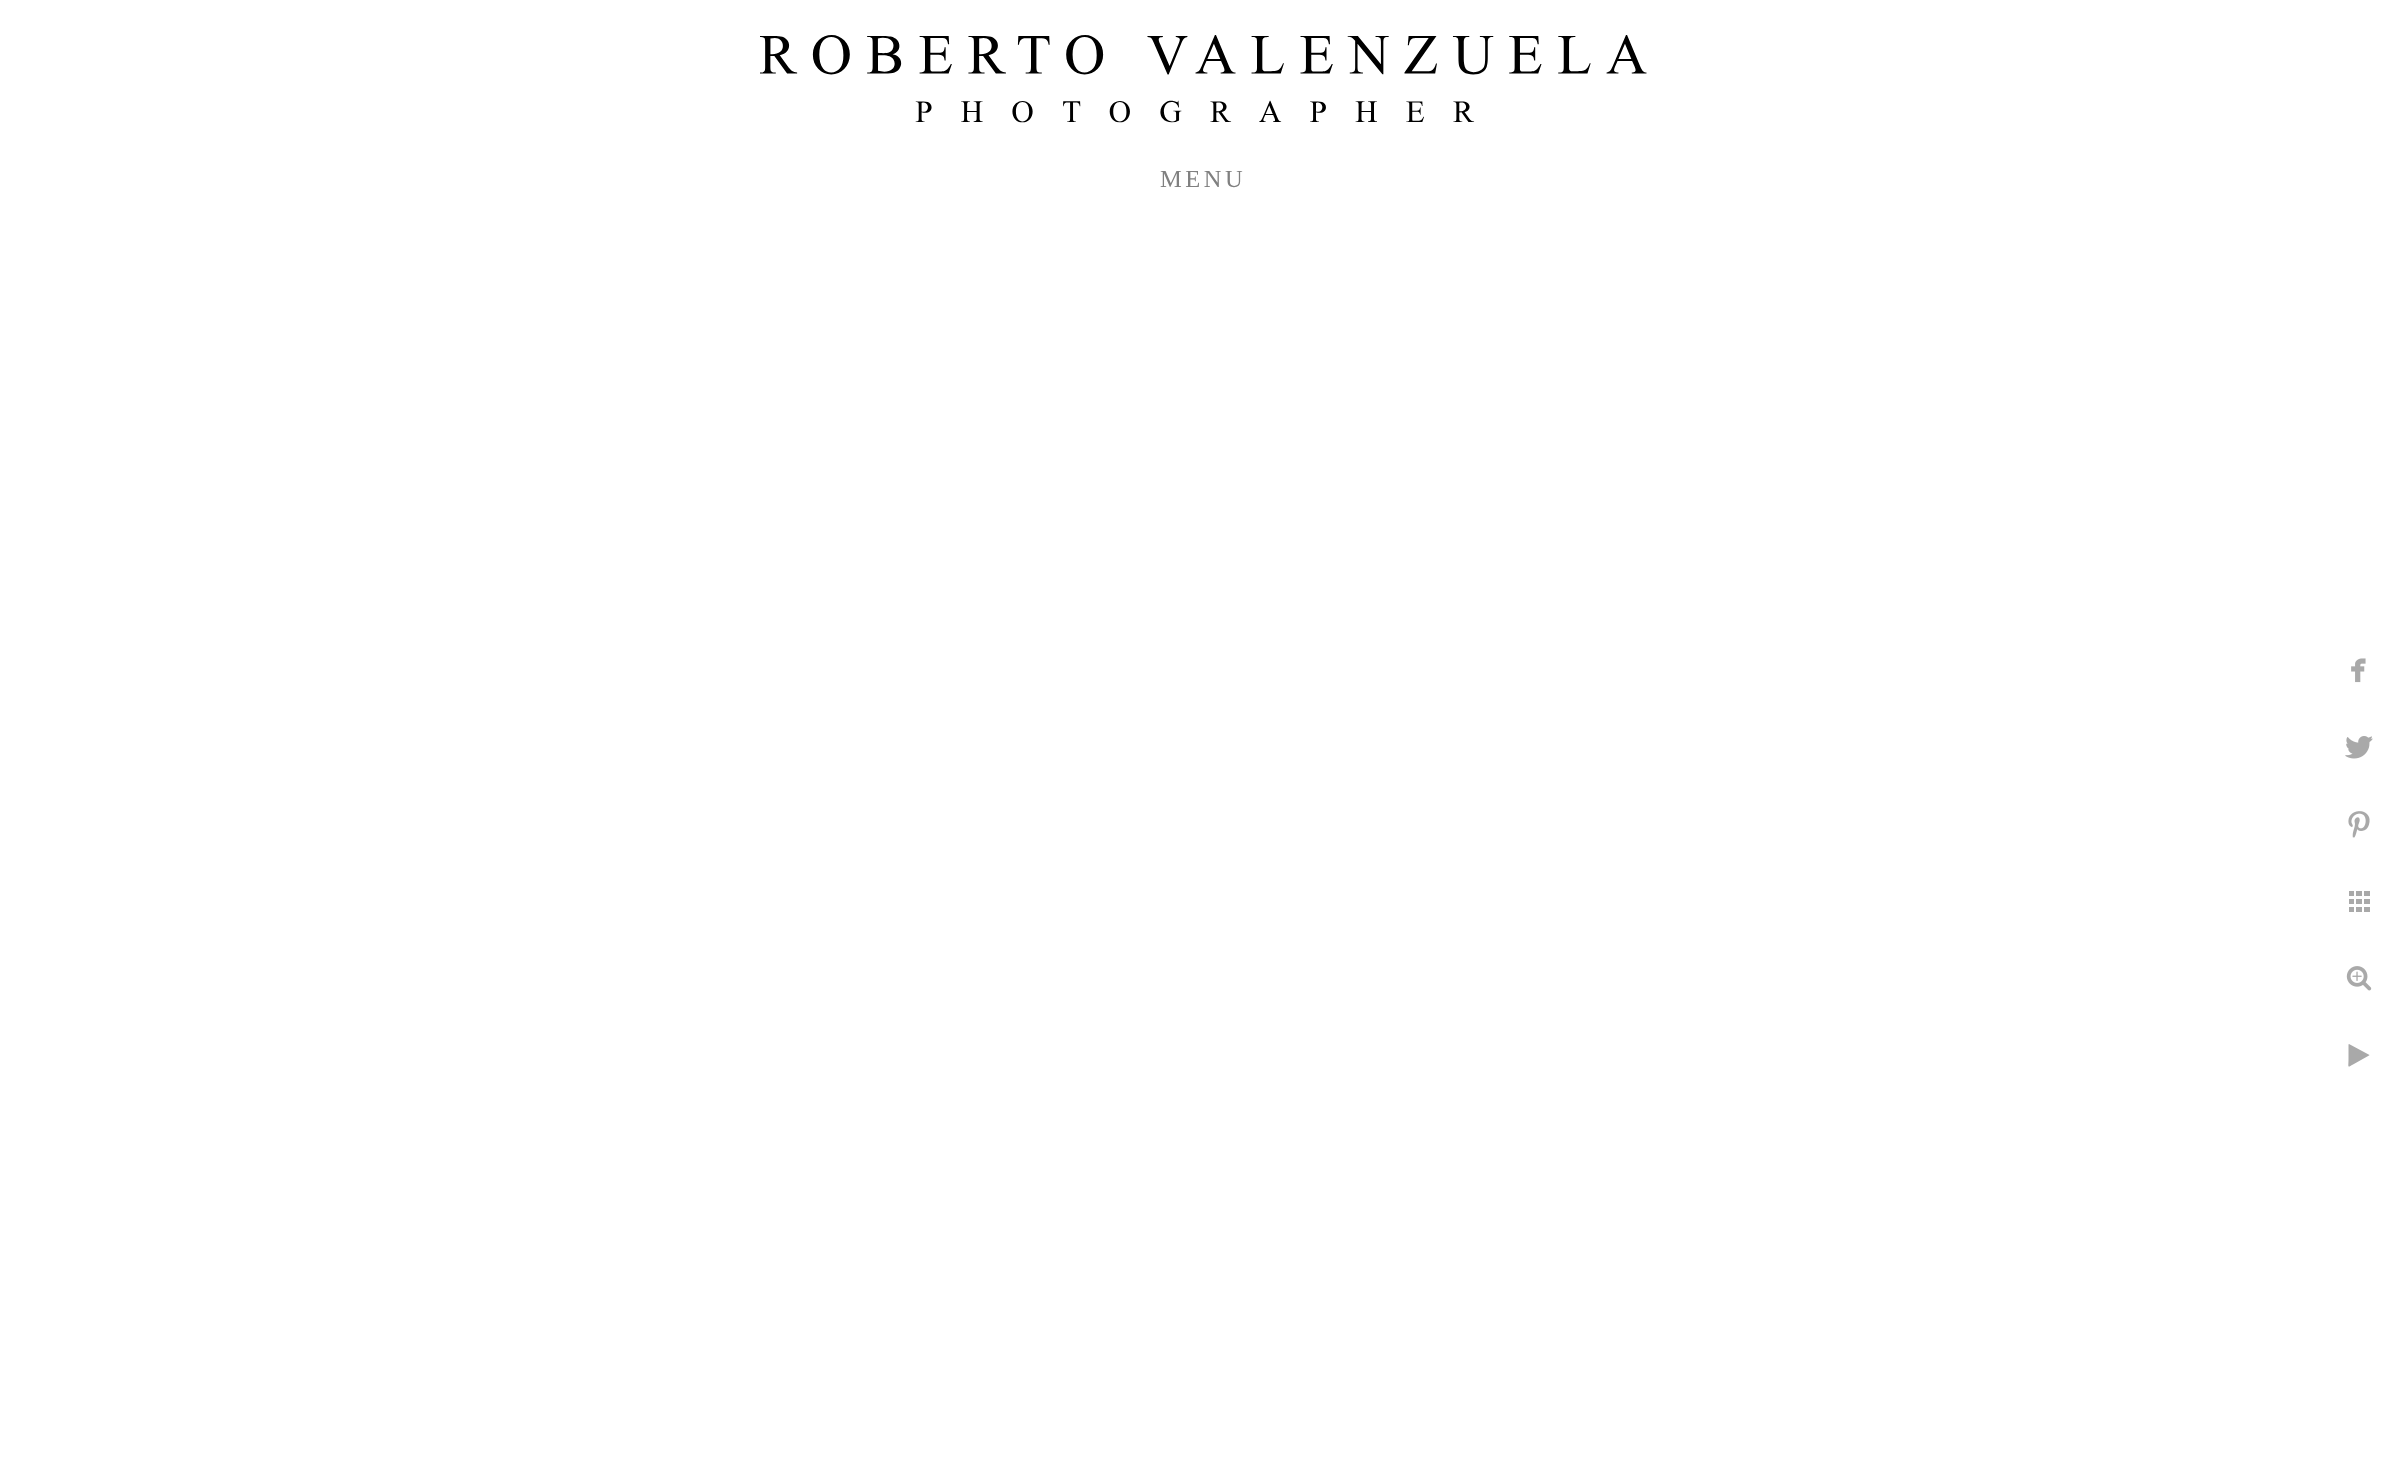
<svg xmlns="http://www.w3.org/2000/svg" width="2406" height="1467">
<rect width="100%" height="100%" fill="#fff"/>
<image x="760" y="35" width="887" height="88" href="media/1.png"/>
<text x="1160" y="187" style="font-family:Liberation Serif;font-size:24.5px;letter-spacing:3.5px;fill:#808080">MENU</text>
<image x="2351" y="658" width="15" height="25" href="media/2.png"/>
<image x="2345" y="736" width="28" height="23" href="media/3.png"/>
<image x="2348" y="811" width="22" height="27" href="media/4.png"/>
<image x="2349" y="891" width="21" height="21" href="media/5.png"/>
<image x="2346" y="966" width="26" height="25" href="media/6.png"/>
<path d="M2369 1055.5l-16 9c-6 3.5-4.5 3-4.5-5.5v-14.5l.5-.5l20.5 11z" fill="#a9a9a9"/>
</svg>
